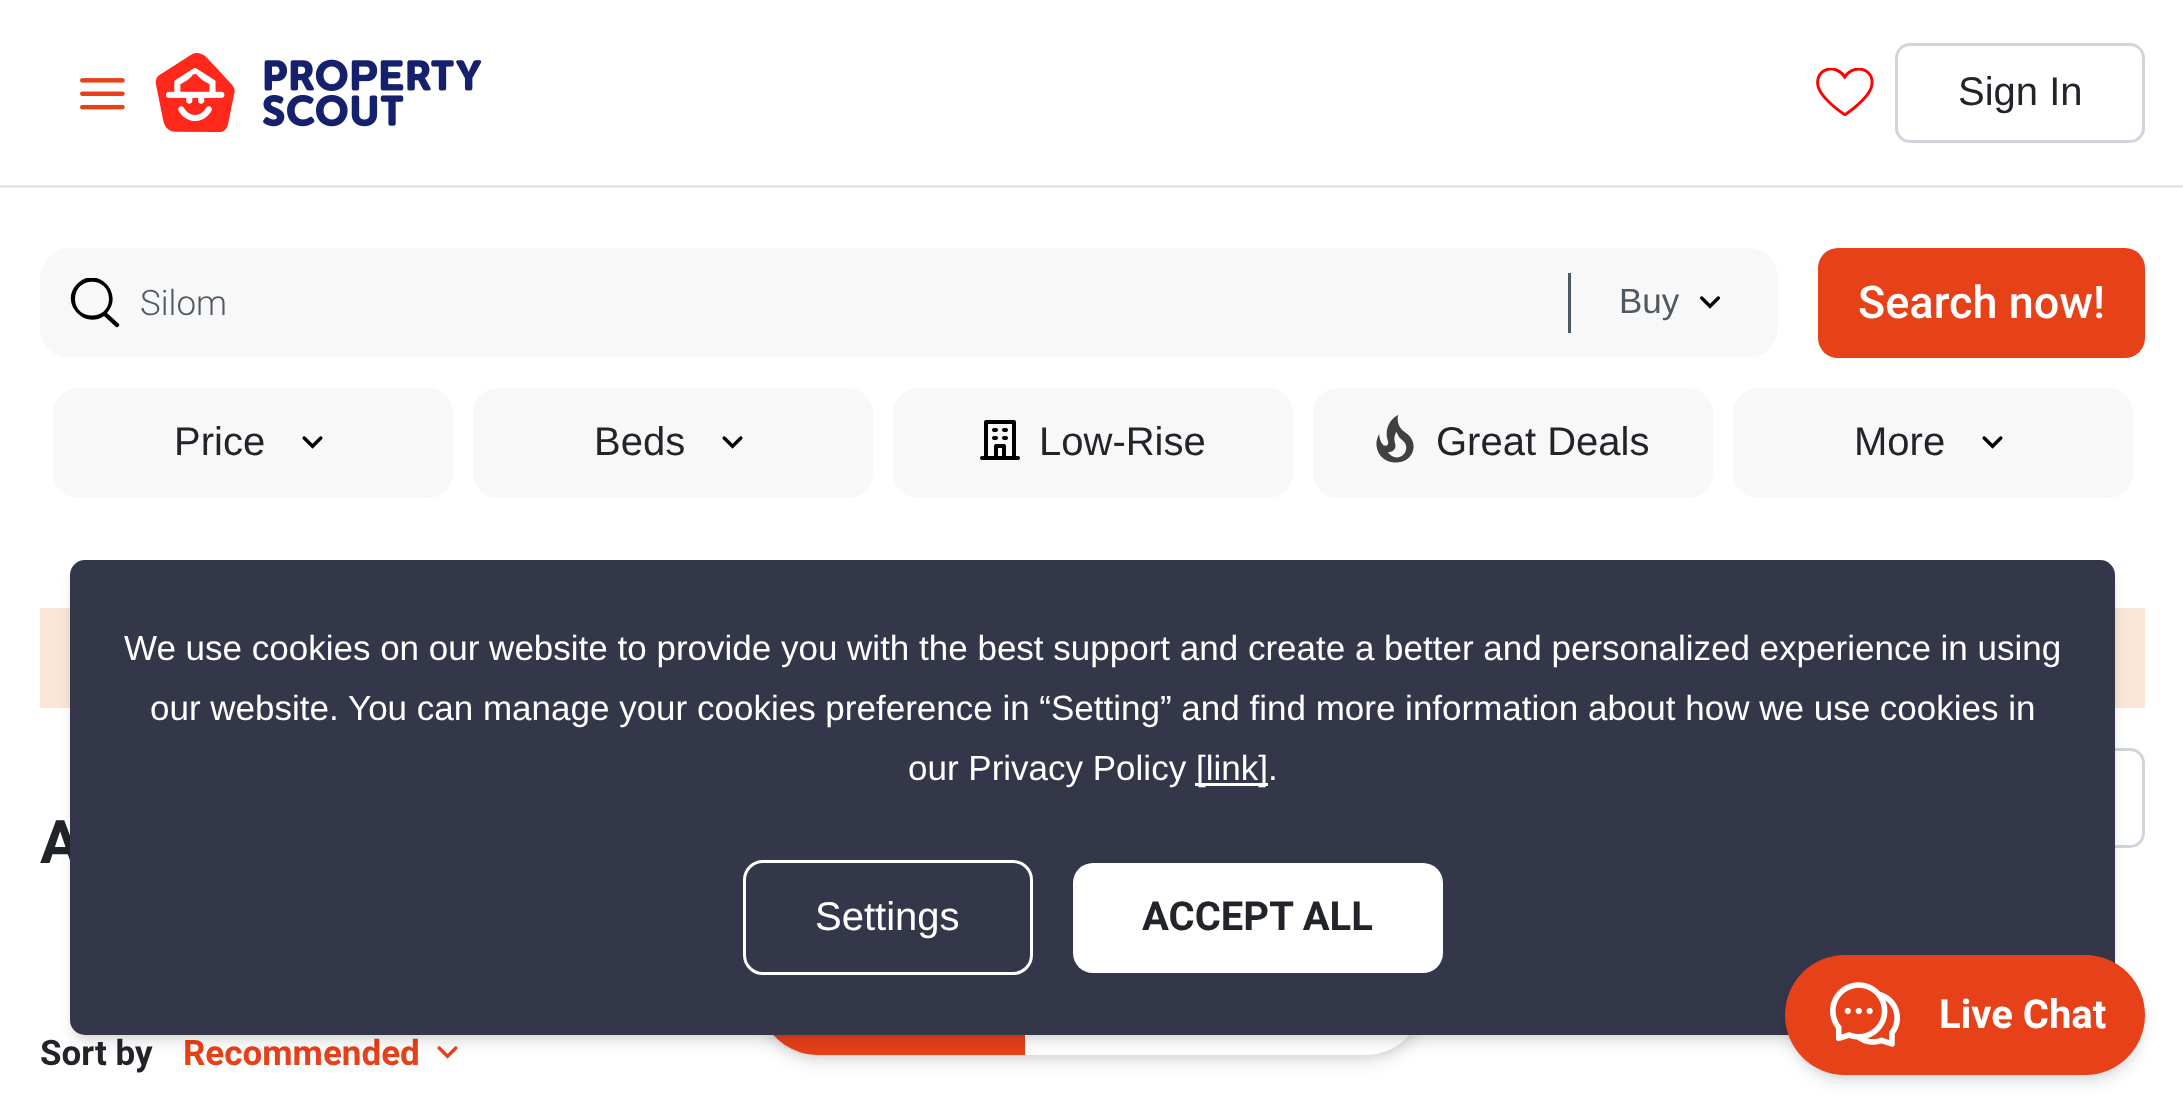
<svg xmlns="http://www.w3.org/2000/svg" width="2183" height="1113">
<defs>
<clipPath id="clip1"><rect x="70" y="278" width="50" height="50"/></clipPath>
<clipPath id="clip2"><path d="M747 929h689v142h-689zm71 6h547c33 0 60 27 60 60c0 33-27 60-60 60h-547c-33 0-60-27-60-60c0-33 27-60 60-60z" clip-rule="evenodd"/></clipPath>
<clipPath id="clip3"><path d="M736 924h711v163h-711zm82 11h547c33 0 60 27 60 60c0 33-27 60-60 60h-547c-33 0-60-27-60-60c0-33 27-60 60-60z" clip-rule="evenodd"/></clipPath>
</defs>
<rect width="100%" height="100%" fill="#fff"/>
<rect y="185" width="2183" height="3" fill="#e5e7eb"/>
<image x="80" y="78" width="45" height="32" href="media/1.png"/>
<image x="155" y="53" width="80" height="79" href="media/2.png"/>
<image x="263" y="59" width="219" height="68" href="media/3.png"/>
<image x="1816" y="68" width="58" height="49" href="media/4.png"/>
<rect x="1896.5" y="44.5" width="247" height="97" rx="13.5" fill="none" stroke="#d1d5db" stroke-width="3"/>
<text x="1958" y="105" style="font-family:Liberation Sans;font-size:40px;fill:#212529">Sign In</text>
<rect x="40" y="248" width="1738" height="110" rx="30" fill="#f8f8f8"/>
<g clip-path="url(#clip1)">
<path d="M119 324l-12-11c18-20-11-49-30-29c-18 18 7 46 27 32l12 11c2 1 4-2 3-3zm-44-25c0-23 34-23 34 0c0 22-34 22-34 0z" fill="#000"/>
</g>
<text x="140" y="315" style="font-family:Roboto;font-size:35px;font-weight:300;fill:#4f5962">Silom</text>
<rect x="1568" y="273" width="3" height="60" fill="#4f5962"/>
<text x="1619" y="313" style="font-family:Liberation Sans;font-size:35px;fill:#4f5962">Buy</text>
<image x="1700" y="296" width="20" height="13" href="media/5.png"/>
<rect x="1818" y="248" width="327" height="110" rx="20" fill="#e74119"/>
<text x="1858" y="318" style="font-family:Roboto;font-size:45px;font-weight:500;fill:#fff">Search now!</text>
<rect x="53" y="388" width="400" height="110" rx="25" fill="#f8f8f8"/>
<text x="174" y="455" style="font-family:Liberation Sans;font-size:40px;fill:#212529">Price</text>
<image x="302" y="436" width="21" height="13" href="media/6.png"/>
<rect x="473" y="388" width="400" height="110" rx="25" fill="#f8f8f8"/>
<text x="594" y="455" style="font-family:Liberation Sans;font-size:40px;fill:#212529">Beds</text>
<image x="722" y="436" width="21" height="13" href="media/6.png"/>
<rect x="893" y="388" width="400" height="110" rx="25" fill="#f8f8f8"/>
<image x="980" y="420" width="40" height="40" href="media/7.png"/>
<text x="1039" y="455" style="font-family:Liberation Sans;font-size:40px;fill:#212529">Low-Rise</text>
<rect x="1313" y="388" width="400" height="110" rx="25" fill="#f8f8f8"/>
<image x="1376" y="415" width="38" height="48" href="media/8.png"/>
<text x="1436" y="455" style="font-family:Liberation Sans;font-size:40px;fill:#212529">Great Deals</text>
<rect x="1733" y="388" width="400" height="110" rx="25" fill="#f8f8f8"/>
<text x="1854" y="455" style="font-family:Liberation Sans;font-size:40px;fill:#212529">More</text>
<image x="1982" y="436" width="21" height="13" href="media/6.png"/>
<rect x="40" y="608" width="2105" height="100" fill="#fae5d6"/>
<text x="40" y="863" style="font-family:Roboto;font-size:60px;font-weight:bold;fill:#212529">A</text>
<rect x="1739.5" y="749.5" width="404" height="97" rx="13.5" fill="none" stroke="#d1d5db" stroke-width="3"/>
<text x="40" y="1065" style="font-family:Roboto;font-size:35px;font-weight:bold;fill:#212529">Sort by</text>
<text x="183" y="1065" style="font-family:Roboto;font-size:35px;font-weight:bold;fill:#e74119">Recommended</text>
<image x="437" y="1046" width="21" height="13" href="media/9.png"/>
<g clip-path="url(#clip2)">
<rect x="763" y="945" width="657" height="110" rx="55" fill="#0000001a" filter="blur(5px)"/>
</g>
<g clip-path="url(#clip3)">
<rect x="760" y="948" width="663" height="115" rx="57.5" fill="#0000001a" filter="blur(7.5px)"/>
</g>
<path d="M818 935h207v120h-207c-33 0-60-27-60-60c0-33 27-60 60-60z" fill="#e74119"/>
<path d="M1295 935h70c33 0 60 27 60 60c0 33-27 60-60 60h-70z" fill="#fff"/>
<rect x="75" y="570" width="2035" height="465" rx="10" fill="#0000001a" filter="blur(5px)"/>
<rect x="73" y="573" width="2040" height="470" rx="13" fill="#0000001a" filter="blur(7.5px)"/>
<rect x="70" y="560" width="2045" height="475" rx="15" fill="#34364a"/>
<text x="124" y="660" style="font-family:Liberation Sans;font-size:35px;fill:#fff">We use cookies on our website to provide you with the best support and create a better and personalized experience in using</text>
<text x="150" y="720" style="font-family:Liberation Sans;font-size:35px;fill:#fff">our website.</text>
<text x="348" y="720" style="font-family:Liberation Sans;font-size:35px;fill:#fff">You can manage your cookies preference in “Setting” and find more information about how we use cookies in</text>
<text x="908" y="780" style="font-family:Liberation Sans;font-size:35px;fill:#fff">our Privacy Policy</text>
<rect x="1195" y="783" width="73" height="3" fill="#fff"/>
<text x="1196" y="780" style="font-family:Liberation Sans;font-size:35px;fill:#fff">[link].</text>
<rect x="744.5" y="861.5" width="287" height="112" rx="18.5" fill="none" stroke="#fff" stroke-width="3"/>
<text x="815" y="930" style="font-family:Liberation Sans;font-size:40px;fill:#fff">Settings</text>
<rect x="1073" y="863" width="370" height="110" rx="20" fill="#fff"/>
<text x="1142" y="930" style="font-family:Roboto;font-size:40px;font-weight:bold;fill:#212529">ACCEPT ALL</text>
<rect x="1790" y="965" width="350" height="110" rx="55" fill="#0000001a" filter="blur(5px)"/>
<rect x="1788" y="968" width="355" height="115" rx="57.5" fill="#0000001a" filter="blur(7.5px)"/>
<rect x="1785" y="955" width="360" height="120" rx="60" fill="#e74119"/>
<image x="1830" y="982" width="70" height="65" href="media/10.png"/>
<text x="1939" y="1028" style="font-family:Roboto;font-size:40px;font-weight:bold;fill:#fff">Live Chat</text>
</svg>
